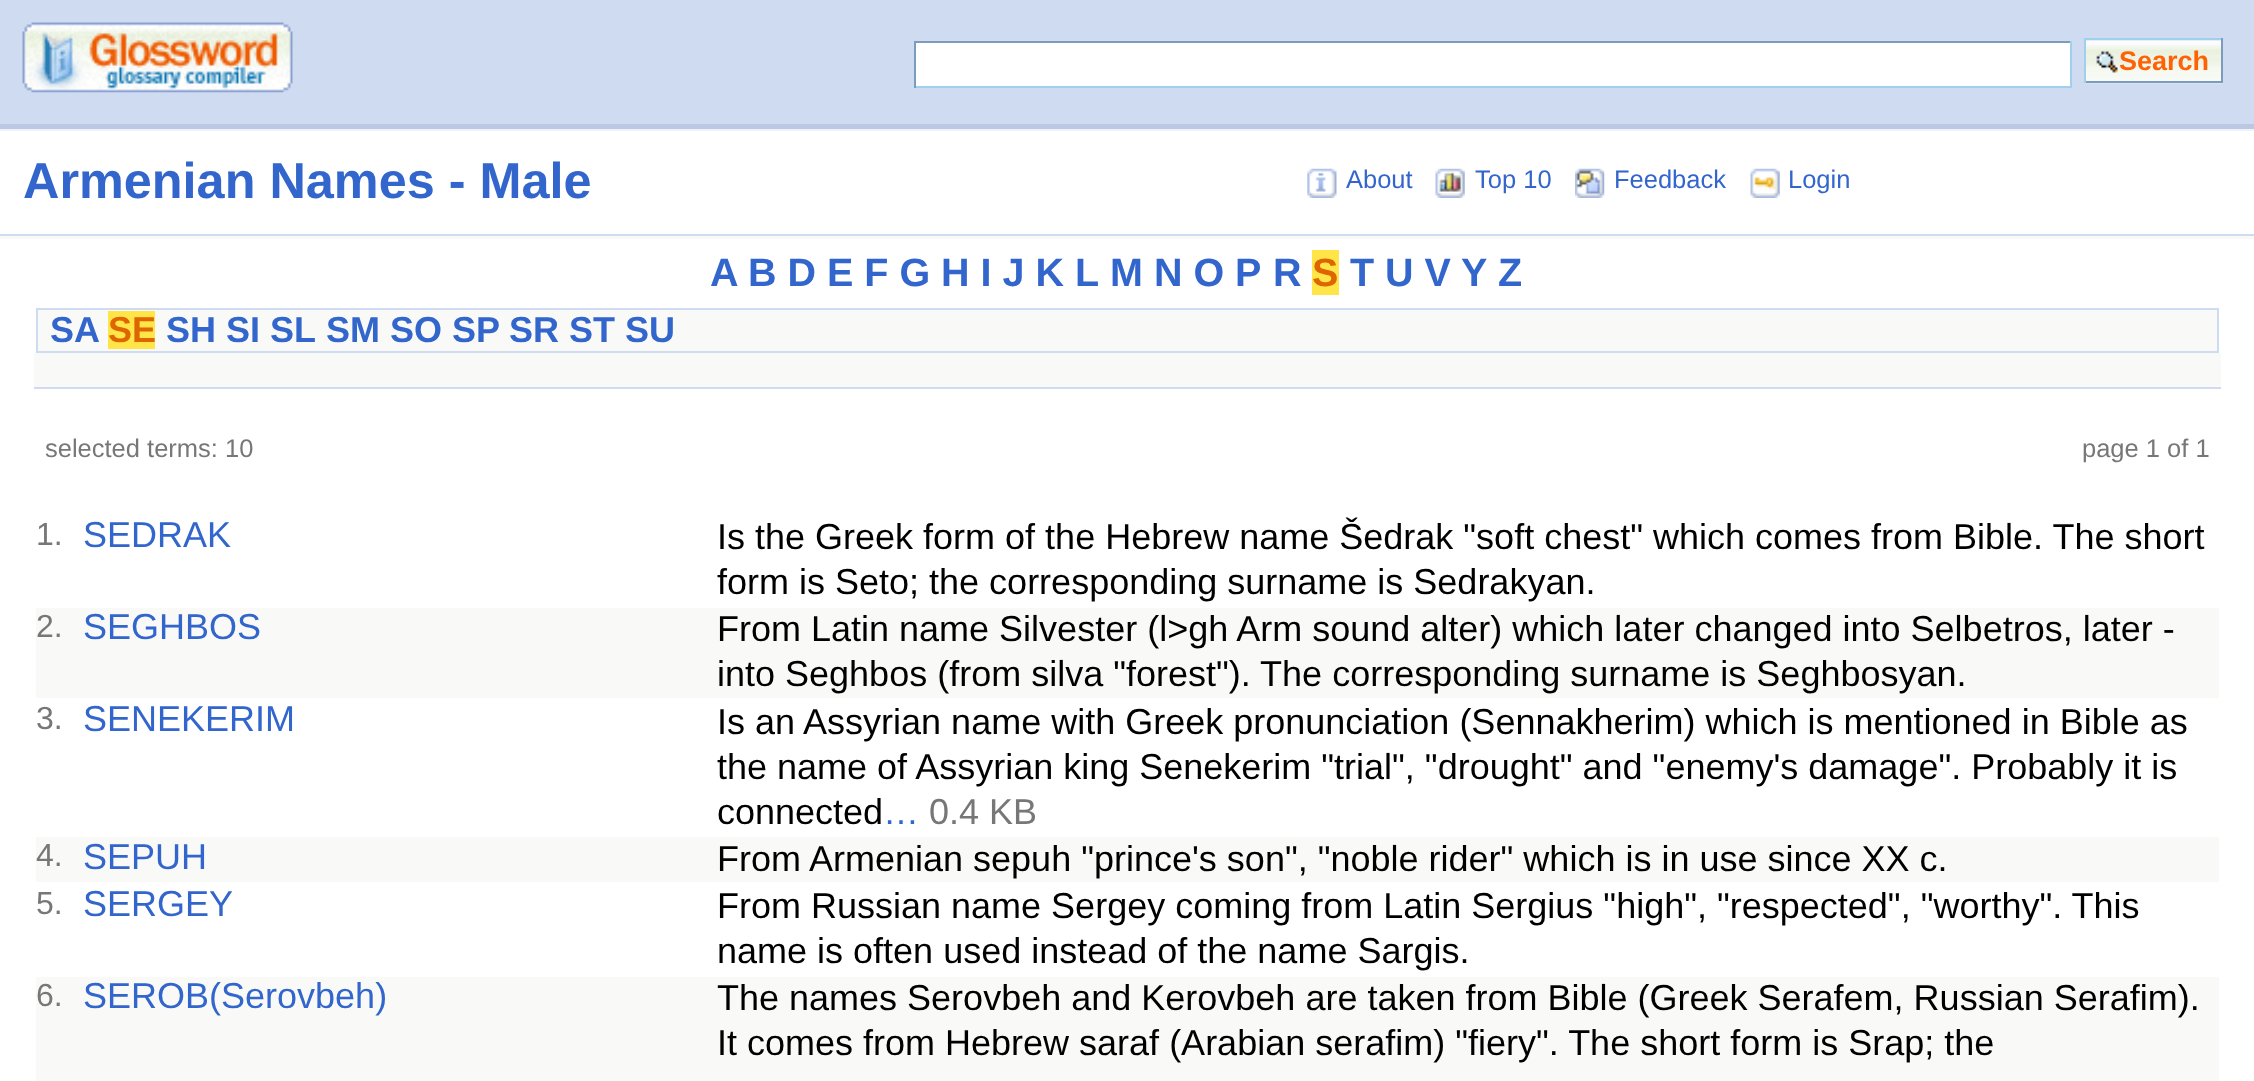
<svg xmlns="http://www.w3.org/2000/svg" width="2254" height="1081">
<rect width="100%" height="100%" fill="#fff"/>
<rect width="2254" height="124" fill="#cedbf0"/>
<image x="22" y="22" width="271" height="71" href="media/1.png"/>
<rect x="916" y="43" width="1154" height="43" fill="#fff"/>
<rect x="914" y="41" width="1158" height="2" fill="#7b9cbc"/>
<rect x="2070" y="41" width="2" height="47" fill="#a0d0ec"/>
<rect x="914" y="86" width="1158" height="2" fill="#a0d0ec"/>
<rect x="914" y="41" width="2" height="47" fill="#7b9cbc"/>
<image x="2085" y="40" width="138" height="44" href="media/2.png"/>
<rect x="2084" y="38" width="139" height="2" fill="#a0d0ec"/>
<rect x="2221" y="38" width="2" height="45" fill="#7b9cbc"/>
<rect x="2084" y="81" width="139" height="2" fill="#7b9cbc"/>
<rect x="2084" y="38" width="2" height="45" fill="#a0d0ec"/>
<text x="2119" y="70" style="font-family:Liberation Sans;font-size:27px;font-weight:bold;fill:#ff6204">Search</text>
<rect y="129" width="2254" height="2" fill="#edf2fd"/>
<rect y="124" width="2254" height="5" fill="#bcc8e2"/>
<text x="23" y="198" style="font-family:Liberation Sans;font-size:50.4px;font-weight:bold;fill:#36c">Armenian Names - Male</text>
<image x="1307" y="168" width="30" height="30" href="media/3.png"/>
<text x="1346" y="188" style="font-family:Liberation Sans;font-size:25.5px;fill:#36c">About</text>
<image x="1435" y="168" width="30" height="30" href="media/4.png"/>
<text x="1475" y="188" style="font-family:Liberation Sans;font-size:25.5px;fill:#36c">Top 10</text>
<image x="1575" y="168" width="30" height="30" href="media/5.png"/>
<text x="1614" y="188" style="font-family:Liberation Sans;font-size:25.5px;fill:#36c">Feedback</text>
<image x="1750" y="168" width="30" height="30" href="media/6.png"/>
<text x="1788" y="188" style="font-family:Liberation Sans;font-size:25.5px;fill:#36c">Login</text>
<rect y="236" width="2254" height="3" fill="#f9faf8"/>
<rect y="234" width="2254" height="2" fill="#cedbf0"/>
<text x="710" y="286" style="font-family:Liberation Sans;font-size:39.5px;font-weight:bold;fill:#36c">A</text>
<text x="748" y="286" style="font-family:Liberation Sans;font-size:39.5px;font-weight:bold;fill:#36c">B D E F G H I J K L</text>
<text x="1110" y="286" style="font-family:Liberation Sans;font-size:39.5px;font-weight:bold;fill:#36c">M N O P</text>
<text x="1273" y="286" style="font-family:Liberation Sans;font-size:39.5px;font-weight:bold;fill:#36c">R</text>
<rect x="1312" y="250" width="27" height="45" fill="#ffe547"/>
<text x="1312" y="286" style="font-family:Liberation Sans;font-size:39.5px;font-weight:bold;fill:#d60">S</text>
<text x="1350" y="286" style="font-family:Liberation Sans;font-size:39.5px;font-weight:bold;fill:#36c">T U V</text>
<text x="1461" y="286" style="font-family:Liberation Sans;font-size:39.5px;font-weight:bold;fill:#36c">Y</text>
<text x="1498" y="286" style="font-family:Liberation Sans;font-size:39.5px;font-weight:bold;fill:#36c">Z</text>
<rect x="37" y="309" width="2181" height="43" fill="#f9faf8" stroke="#cedbf0" stroke-width="2"/>
<text x="50" y="342" style="font-family:Liberation Sans;font-size:36px;font-weight:bold;fill:#36c">SA</text>
<rect x="108" y="311" width="47" height="38" fill="#ffe547"/>
<text x="108" y="342" style="font-family:Liberation Sans;font-size:36px;font-weight:bold;fill:#d60">SE</text>
<text x="166" y="342" style="font-family:Liberation Sans;font-size:36px;font-weight:bold;fill:#36c">SH SI SL</text>
<text x="326" y="342" style="font-family:Liberation Sans;font-size:36px;font-weight:bold;fill:#36c">SM SO SP</text>
<text x="509" y="342" style="font-family:Liberation Sans;font-size:36px;font-weight:bold;fill:#36c">SR ST SU</text>
<rect x="34" y="353" width="2187" height="34" fill="#f9faf8"/>
<rect x="34" y="387" width="2187" height="2" fill="#cedbf0"/>
<text x="45" y="457" style="font-family:Liberation Sans;font-size:25.5px;fill:#777">selected terms: 10</text>
<text x="2082" y="457" style="font-family:Liberation Sans;font-size:25.5px;fill:#777">page 1 of 1</text>
<text x="36" y="545" style="font-family:Liberation Sans;font-size:32px;fill:#777">1.</text>
<text x="83" y="547" style="font-family:Liberation Sans;font-size:36px;fill:#36c">SEDRAK</text>
<text x="717" y="549" style="font-family:Liberation Sans;font-size:36px;fill:#000">Is the Greek form of the Hebrew name Šedrak "soft chest" which comes from Bible. The short</text>
<text x="717" y="594" style="font-family:Liberation Sans;font-size:36px;fill:#000">form is Seto; the corresponding surname is Sedrakyan.</text>
<rect x="36" y="608" width="2183" height="90" fill="#f9faf8"/>
<text x="36" y="637" style="font-family:Liberation Sans;font-size:32px;fill:#777">2.</text>
<text x="83" y="639" style="font-family:Liberation Sans;font-size:36px;fill:#36c">SEGHBOS</text>
<text x="717" y="641" style="font-family:Liberation Sans;font-size:36px;fill:#000">From Latin name Silvester (l&gt;gh Arm sound alter) which later changed into Selbetros, later -</text>
<text x="717" y="686" style="font-family:Liberation Sans;font-size:36px;fill:#000">into Seghbos (from silva "forest"). The corresponding surname is Seghbosyan.</text>
<text x="36" y="729" style="font-family:Liberation Sans;font-size:32px;fill:#777">3.</text>
<text x="83" y="731" style="font-family:Liberation Sans;font-size:36px;fill:#36c">SENEKERIM</text>
<text x="717" y="734" style="font-family:Liberation Sans;font-size:36px;fill:#000">Is an Assyrian name with Greek pronunciation (Sennakherim) which is mentioned in Bible as</text>
<text x="717" y="779" style="font-family:Liberation Sans;font-size:36px;fill:#000">the name of Assyrian king Senekerim "trial", "drought" and "enemy's damage". Probably it is</text>
<text x="717" y="824" style="font-family:Liberation Sans;font-size:36px;fill:#000">connected</text>
<text x="883" y="824" style="font-family:Liberation Sans;font-size:36px;fill:#36c">…</text>
<text x="929" y="824" style="font-family:Liberation Sans;font-size:36px;fill:#777">0.4 KB</text>
<rect x="36" y="837" width="2183" height="45" fill="#f9faf8"/>
<text x="36" y="866" style="font-family:Liberation Sans;font-size:32px;fill:#777">4.</text>
<text x="83" y="869" style="font-family:Liberation Sans;font-size:36px;fill:#36c">SEPUH</text>
<text x="717" y="871" style="font-family:Liberation Sans;font-size:36px;fill:#000">From Armenian sepuh "prince's son", "noble rider" which is in use since XX c.</text>
<text x="36" y="914" style="font-family:Liberation Sans;font-size:32px;fill:#777">5.</text>
<text x="83" y="916" style="font-family:Liberation Sans;font-size:36px;fill:#36c">SERGEY</text>
<text x="717" y="918" style="font-family:Liberation Sans;font-size:36px;fill:#000">From Russian name Sergey coming from Latin Sergius "high", "respected", "worthy". This</text>
<text x="717" y="963" style="font-family:Liberation Sans;font-size:36px;fill:#000">name is often used instead of the name Sargis.</text>
<rect x="36" y="977" width="2183" height="104" fill="#f9faf8"/>
<text x="36" y="1006" style="font-family:Liberation Sans;font-size:32px;fill:#777">6.</text>
<text x="83" y="1008" style="font-family:Liberation Sans;font-size:36px;fill:#36c">SEROB(Serovbeh)</text>
<text x="717" y="1010" style="font-family:Liberation Sans;font-size:36px;fill:#000">The names Serovbeh and Kerovbeh are taken from Bible (Greek Serafem, Russian Serafim).</text>
<text x="717" y="1055" style="font-family:Liberation Sans;font-size:36px;fill:#000">It comes from Hebrew saraf (Arabian serafim) "fiery". The short form is Srap; the</text>
</svg>
